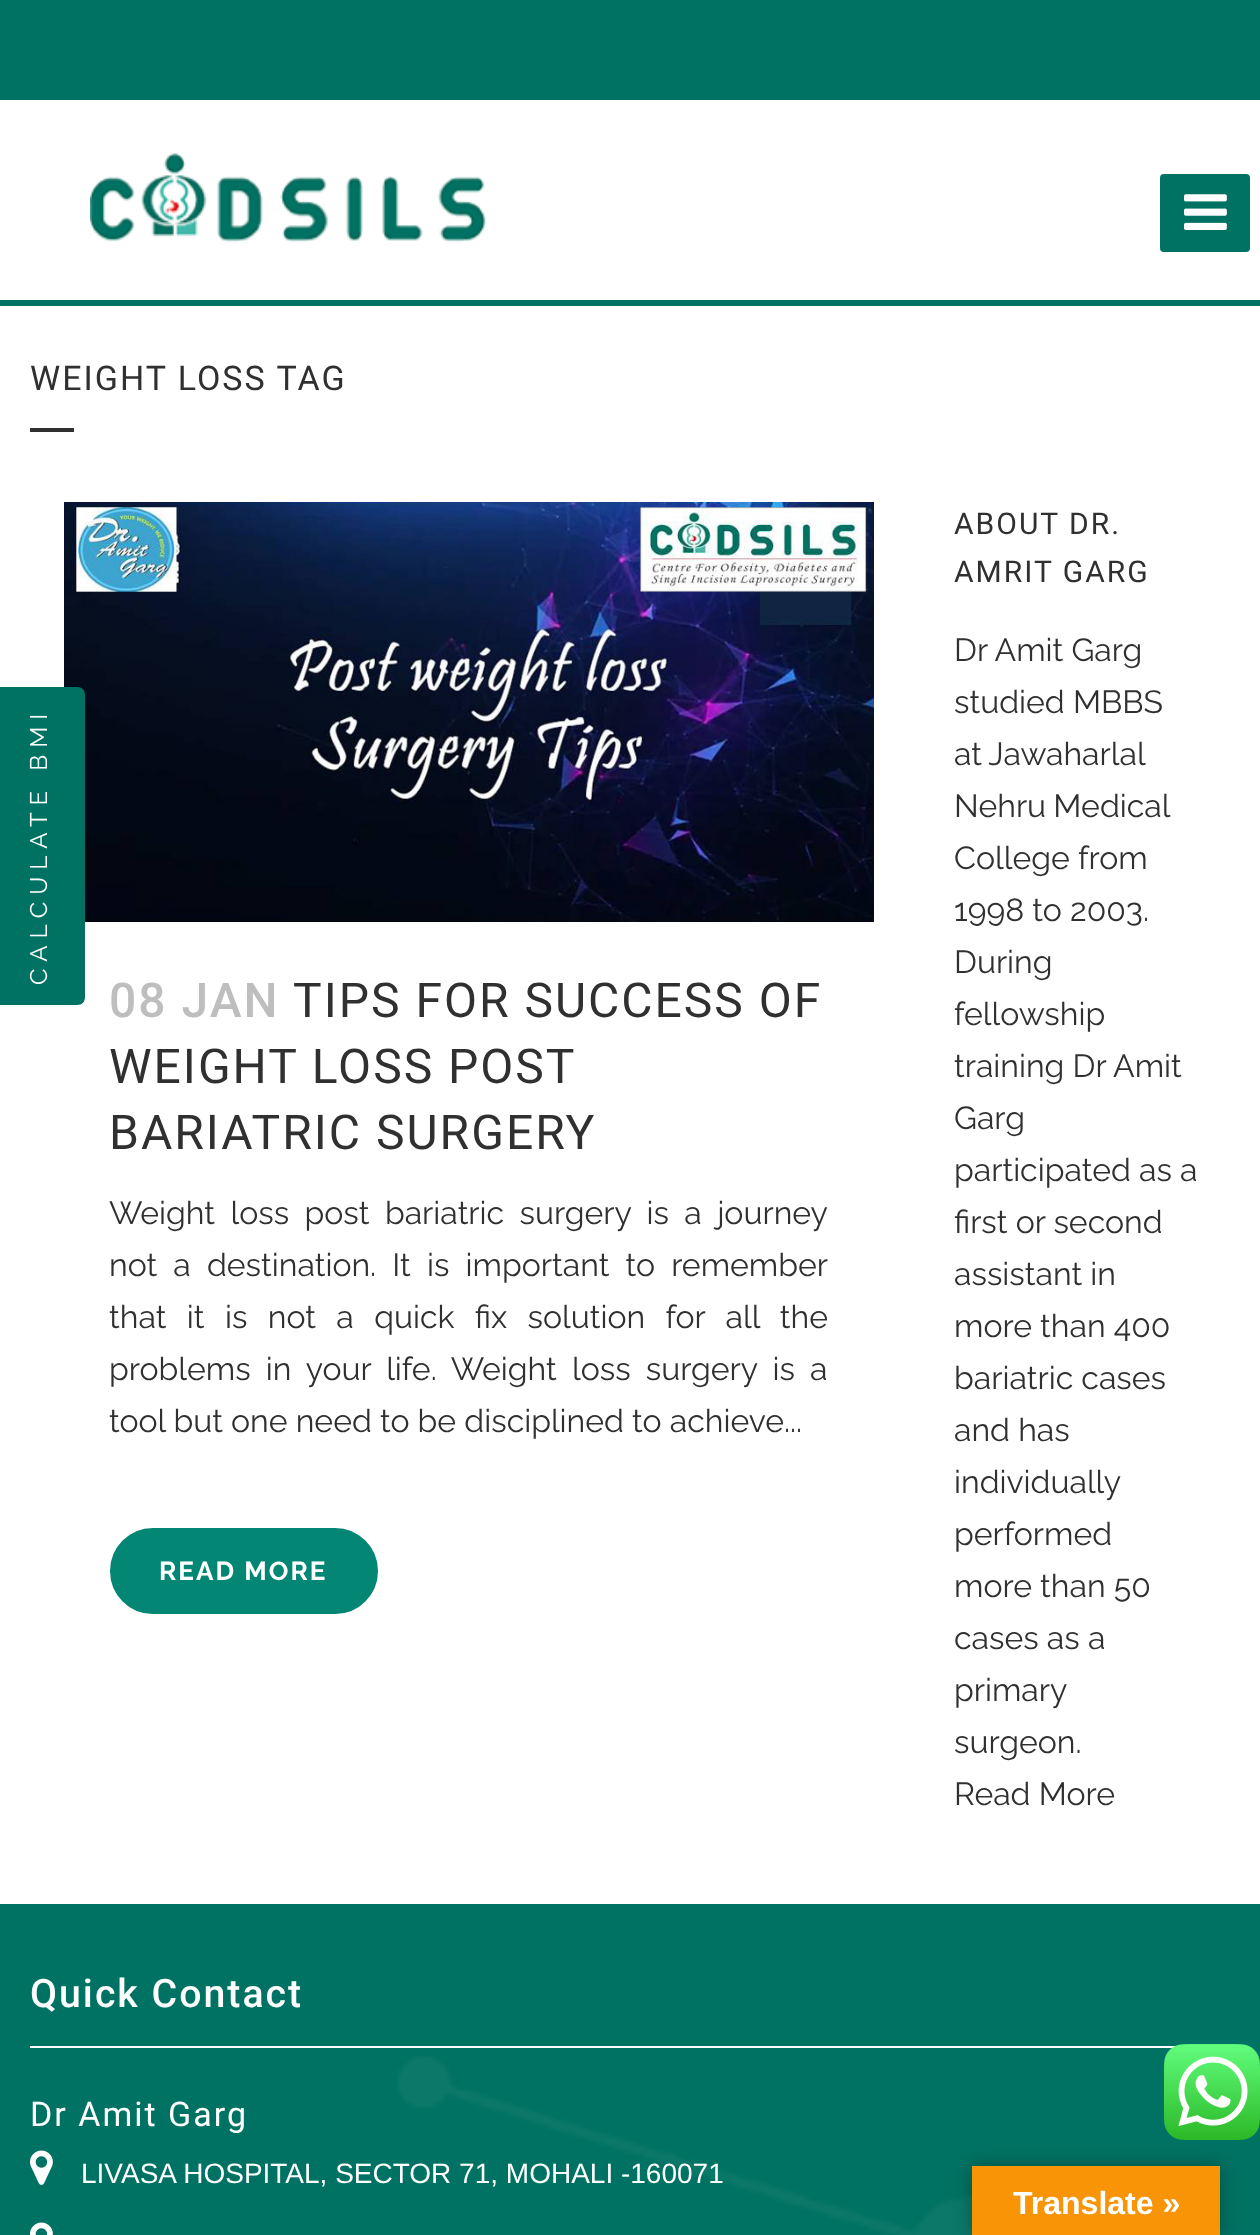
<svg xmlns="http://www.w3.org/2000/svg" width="1260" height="2235">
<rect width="100%" height="100%" fill="#fff"/>
<rect width="1260" height="100" fill="#007263"/>
<rect y="300" width="1260" height="6" fill="#007263"/>
<image x="90" y="153" width="397" height="90" href="media/1.png"/>
<rect x="1160" y="174" width="90" height="78" rx="4" fill="#007263"/>
<image x="1184" y="194" width="43" height="36" href="media/2.png"/>
<text x="30" y="390" style="font-family:Roboto;font-size:34px;letter-spacing:2px;fill:#303030">WEIGHT LOSS TAG</text>
<rect x="30" y="428" width="44" height="4" fill="#303030"/>
<image x="64" y="502" width="810" height="420" href="media/3.png"/>
<text x="109" y="1017" style="font-family:Roboto;font-size:48px;font-weight:500;letter-spacing:2px;fill:#bebebe">08 JAN</text>
<text x="293" y="1017" style="font-family:Roboto;font-size:48px;letter-spacing:2px;fill:#303030">TIPS FOR SUCCESS OF</text>
<text x="109" y="1083" style="font-family:Roboto;font-size:48px;letter-spacing:2px;fill:#303030">WEIGHT LOSS POST</text>
<text x="109" y="1149" style="font-family:Roboto;font-size:48px;letter-spacing:2px;fill:#303030">BARIATRIC SURGERY</text>
<text x="109" y="1224" word-spacing="7.25" style="font-family:Raleway;font-size:32px;fill:#303030">Weight loss post bariatric surgery is a journey</text>
<text x="109" y="1276" word-spacing="8" style="font-family:Raleway;font-size:32px;fill:#303030">not a destination. It is important to remember</text>
<text x="109" y="1328" word-spacing="12.25" style="font-family:Raleway;font-size:32px;fill:#303030">that it is not a quick fix solution for all the</text>
<text x="109" y="1380" word-spacing="7" style="font-family:Raleway;font-size:32px;fill:#303030">problems in your life. Weight loss surgery is a</text>
<text x="109" y="1432" style="font-family:Raleway;font-size:32px;fill:#303030">tool but one need to be disciplined to achieve...</text>
<rect x="112" y="1530" width="264" height="82" rx="41" fill="#048674" stroke="#048674" stroke-width="4"/>
<text x="159" y="1580" style="font-family:Raleway;font-size:26px;font-weight:bold;letter-spacing:2px;fill:#fff">READ MORE</text>
<text x="954" y="534" style="font-family:Roboto;font-size:30px;letter-spacing:2px;fill:#303030">ABOUT DR.</text>
<text x="954" y="582" style="font-family:Roboto;font-size:30px;letter-spacing:2px;fill:#303030">AMRIT GARG</text>
<text x="954" y="661" style="font-family:Raleway;font-size:32px;fill:#303030">Dr Amit Garg</text>
<text x="954" y="713" style="font-family:Raleway;font-size:32px;fill:#303030">studied MBBS</text>
<text x="954" y="765" word-spacing="-1" style="font-family:Raleway;font-size:32px;fill:#303030">at Jawaharlal</text>
<text x="954" y="817" word-spacing="-1" style="font-family:Raleway;font-size:32px;fill:#303030">Nehru Medical</text>
<text x="954" y="869" style="font-family:Raleway;font-size:32px;fill:#303030">College from</text>
<text x="954" y="921" style="font-family:Raleway;font-size:32px;fill:#303030">1998 to 2003.</text>
<text x="954" y="973" style="font-family:Raleway;font-size:32px;fill:#303030">During</text>
<text x="954" y="1025" style="font-family:Raleway;font-size:32px;fill:#303030">fellowship</text>
<text x="954" y="1077" style="font-family:Raleway;font-size:32px;fill:#303030">training Dr Amit</text>
<text x="954" y="1129" style="font-family:Raleway;font-size:32px;fill:#303030">Garg</text>
<text x="954" y="1181" style="font-family:Raleway;font-size:32px;fill:#303030">participated as a</text>
<text x="954" y="1233" style="font-family:Raleway;font-size:32px;fill:#303030">first or second</text>
<text x="954" y="1285" style="font-family:Raleway;font-size:32px;fill:#303030">assistant in</text>
<text x="954" y="1337" style="font-family:Raleway;font-size:32px;fill:#303030">more than 400</text>
<text x="954" y="1389" style="font-family:Raleway;font-size:32px;fill:#303030">bariatric cases</text>
<text x="954" y="1441" style="font-family:Raleway;font-size:32px;fill:#303030">and has</text>
<text x="954" y="1493" style="font-family:Raleway;font-size:32px;fill:#303030">individually</text>
<text x="954" y="1545" style="font-family:Raleway;font-size:32px;fill:#303030">performed</text>
<text x="954" y="1597" style="font-family:Raleway;font-size:32px;fill:#303030">more than 50</text>
<text x="954" y="1649" style="font-family:Raleway;font-size:32px;fill:#303030">cases as a</text>
<text x="954" y="1701" style="font-family:Raleway;font-size:32px;fill:#303030">primary</text>
<text x="954" y="1753" style="font-family:Raleway;font-size:32px;fill:#303030">surgeon.</text>
<text x="954" y="1805" style="font-family:Raleway;font-size:32px;fill:#303030">Read More</text>
<rect y="1904" width="1260" height="331" fill="#007263"/>
<image x="397" y="2056" width="629" height="179" href="media/4.png"/>
<rect x="30" y="2046" width="1146" height="2" fill="#fff"/>
<text x="30" y="2007" style="font-family:Roboto;font-size:39.25px;font-weight:500;letter-spacing:2px;fill:#fff">Quick Contact</text>
<text x="30" y="2126" style="font-family:Roboto;font-size:34px;letter-spacing:2px;fill:#fff">Dr Amit Garg</text>
<image x="30" y="2150" width="23" height="35" href="media/5.png"/>
<text x="81" y="2183" style="font-family:Liberation Sans;font-size:28px;fill:#fff">LIVASA HOSPITAL, SECTOR 71, MOHALI -160071</text>
<image x="30" y="2222" width="23" height="13" href="media/6.png"/>
<path d="M-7 997v-302c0-5 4-8 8-8h76c5 0 8 3 8 8v302c0 5-3 8-8 8h-76c-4 0-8-3-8-8z" fill="#007263"/>
<text x="47" y="985" transform="rotate(-90 47 985)" style="font-family:Raleway;font-size:24px;letter-spacing:7px;fill:#fff">CALCULATE BMI</text>
<rect x="972" y="2166" width="248" height="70" fill="#0000004d" filter="blur(9px)"/>
<image x="1164" y="2044" width="96" height="96" href="media/7.png"/>
<rect x="972" y="2166" width="248" height="69" fill="#f89406"/>
<text x="1013" y="2214" style="font-family:Liberation Sans;font-size:32px;font-weight:bold;fill:#fff">Translate »</text>
</svg>
